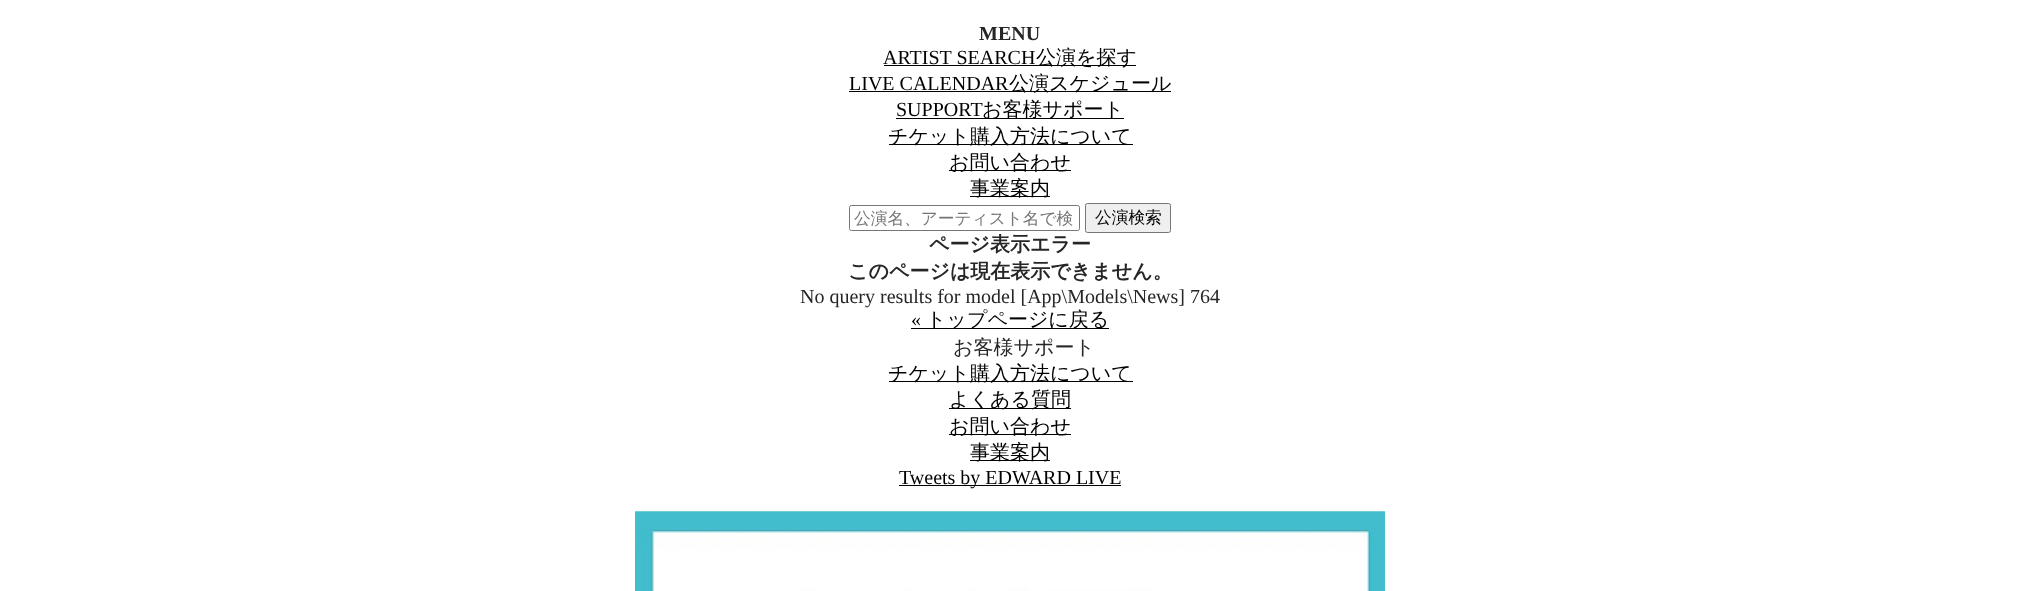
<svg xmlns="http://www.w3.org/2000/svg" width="2019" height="591">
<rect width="100%" height="100%" fill="#fff"/>
<text x="979" y="40" style="font-family:Liberation Serif;font-size:20px;font-weight:bold;fill:#262626">MENU</text>
<text x="883" y="64" style="font-family:Liberation Serif;font-size:20px;fill:#000">ARTIST SEARCH</text>
<rect x="884" y="65" width="252" height="1" fill="#000"/>
<text x="1036" y="64" style="font-family:WenQuanYi Zen Hei;font-size:20px;font-weight:500;fill:#000">公演を探す</text>
<text x="849" y="90" style="font-family:Liberation Serif;font-size:20px;fill:#000">LIVE CALENDAR</text>
<rect x="849" y="91" width="322" height="1" fill="#000"/>
<text x="1009" y="90" style="font-family:WenQuanYi Zen Hei;font-size:20px;font-weight:500;fill:#000">公演スケジュール</text>
<text x="896" y="116" style="font-family:Liberation Serif;font-size:20px;fill:#000">SUPPORT</text>
<rect x="896" y="118" width="228" height="1" fill="#000"/>
<text x="982" y="116" style="font-family:WenQuanYi Zen Hei;font-size:20px;font-weight:500;fill:#000">お客様サポート</text>
<rect x="889" y="144" width="244" height="1" fill="#000"/>
<text x="888" y="143" style="font-family:WenQuanYi Zen Hei;font-size:20px;font-weight:500;fill:#000">チケット購入方法について</text>
<rect x="949" y="170" width="122" height="1" fill="#000"/>
<text x="949" y="169" style="font-family:WenQuanYi Zen Hei;font-size:20px;font-weight:500;fill:#000">お問い合わせ</text>
<rect x="970" y="196" width="80" height="1" fill="#000"/>
<text x="970" y="195" style="font-family:WenQuanYi Zen Hei;font-size:20px;font-weight:500;fill:#000">事業案内</text>
<rect x="849.5" y="205.5" width="230" height="25" rx="2" fill="none" stroke="#767676"/>
<text x="854" y="224" style="font-family:WenQuanYi Zen Hei;font-size:16.7px;font-weight:500;fill:#757575">公演名、アーティスト名で検</text>
<rect x="1085.5" y="203.5" width="85" height="29" rx="2" fill="#efefef" stroke="#767676"/>
<text x="1095" y="223" style="font-family:WenQuanYi Zen Hei;font-size:16.7px;font-weight:500;fill:#000">公演検索</text>
<text x="929" y="251" style="font-family:WenQuanYi Zen Hei;font-size:20px;font-weight:bold;fill:#262626">ページ表示エラー</text>
<text x="848" y="278" style="font-family:WenQuanYi Zen Hei;font-size:20px;font-weight:bold;fill:#262626">このページは現在表示できません。</text>
<text x="800" y="303" style="font-family:Liberation Serif;font-size:20px;fill:#262626">No query results for model [App\Models\News] 764</text>
<text x="911" y="326" style="font-family:Liberation Serif;font-size:20px;fill:#000">«</text>
<rect x="911" y="328" width="198" height="1" fill="#000"/>
<text x="926" y="326" style="font-family:WenQuanYi Zen Hei;font-size:20px;font-weight:500;fill:#000">トップページに戻る</text>
<text x="953" y="354" style="font-family:WenQuanYi Zen Hei;font-size:20px;font-weight:500;fill:#262626">お客様サポート</text>
<rect x="889" y="381" width="244" height="1" fill="#000"/>
<text x="888" y="380" style="font-family:WenQuanYi Zen Hei;font-size:20px;font-weight:500;fill:#000">チケット購入方法について</text>
<rect x="949" y="408" width="122" height="1" fill="#000"/>
<text x="949" y="406" style="font-family:WenQuanYi Zen Hei;font-size:20px;font-weight:500;fill:#000">よくある質問</text>
<rect x="949" y="434" width="122" height="1" fill="#000"/>
<text x="949" y="433" style="font-family:WenQuanYi Zen Hei;font-size:20px;font-weight:500;fill:#000">お問い合わせ</text>
<rect x="970" y="460" width="80" height="1" fill="#000"/>
<text x="970" y="459" style="font-family:WenQuanYi Zen Hei;font-size:20px;font-weight:500;fill:#000">事業案内</text>
<rect x="899" y="485" width="222" height="1" fill="#000"/>
<text x="899" y="484" style="font-family:Liberation Serif;font-size:20px;fill:#000">Tweets by EDWARD LIVE</text>
<image x="635" y="511" width="750" height="80" href="media/1.png"/>
</svg>
